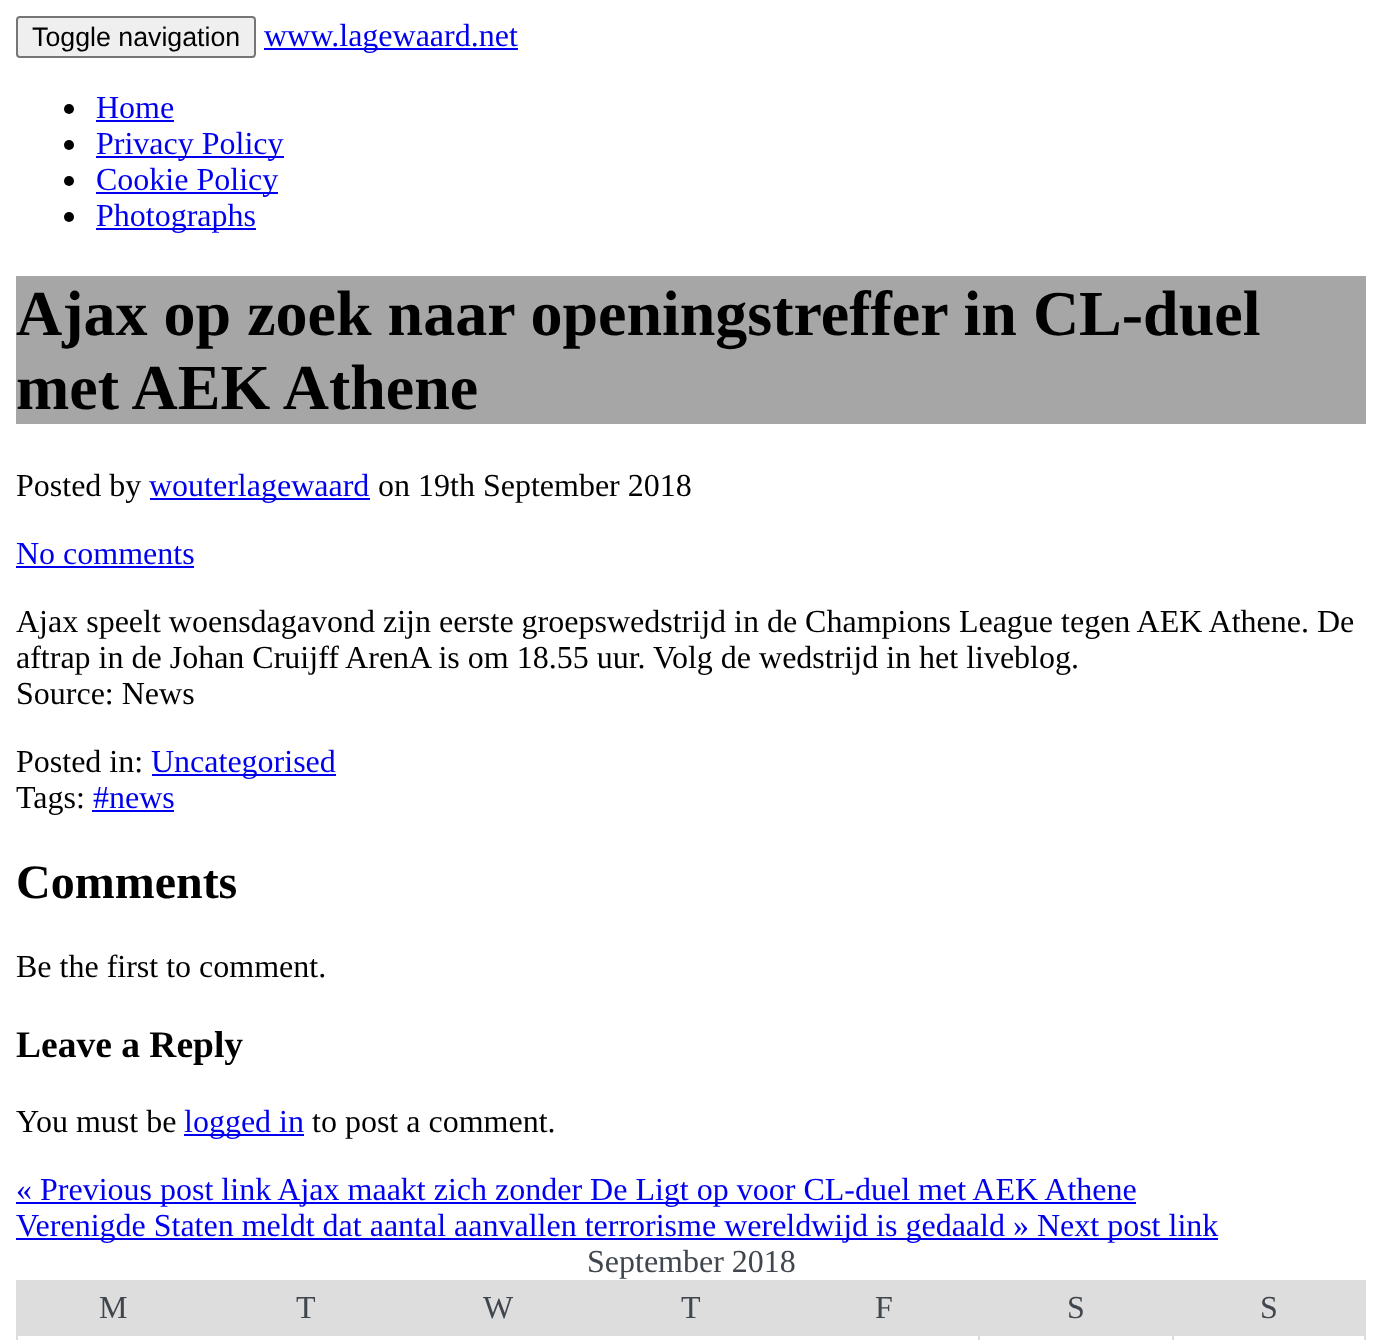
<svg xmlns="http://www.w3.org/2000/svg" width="1382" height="1340">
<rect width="100%" height="100%" fill="#fff"/>
<rect x="17" y="17" width="238" height="40" rx="3" fill="#efefef" stroke="#767676" stroke-width="2"/>
<text x="32" y="46" style="font-family:Liberation Sans;font-size:26.75px;fill:#000">Toggle navigation</text>
<rect x="264" y="48" width="254" height="2" fill="#00e"/>
<text x="264" y="46" style="font-family:Liberation Serif;font-size:32px;fill:#00e">www.lagewaard.net</text>
<circle cx="69" cy="109" r="5" fill="#000"/>
<text x="96" y="118" style="font-family:Liberation Serif;font-size:32px;fill:#00e">Home</text>
<rect x="96" y="120" width="78" height="2" fill="#00e"/>
<circle cx="69" cy="145" r="5" fill="#000"/>
<rect x="96" y="156" width="188" height="2" fill="#00e"/>
<text x="96" y="154" style="font-family:Liberation Serif;font-size:32px;fill:#00e">Privacy Policy</text>
<circle cx="69" cy="181" r="5" fill="#000"/>
<rect x="96" y="192" width="182" height="2" fill="#00e"/>
<text x="96" y="190" style="font-family:Liberation Serif;font-size:32px;fill:#00e">Cookie Policy</text>
<circle cx="69" cy="217" r="5" fill="#000"/>
<rect x="96" y="228" width="160" height="2" fill="#00e"/>
<text x="96" y="226" style="font-family:Liberation Serif;font-size:32px;fill:#00e">Photographs</text>
<rect x="16" y="276" width="1350" height="148" fill="#a6a6a6"/>
<text x="16" y="335" style="font-family:Liberation Serif;font-size:64px;font-weight:bold;fill:#000">Ajax op zoek naar openingstreffer in CL-duel</text>
<text x="16" y="409" style="font-family:Liberation Serif;font-size:64px;font-weight:bold;fill:#000">met AEK Athene</text>
<text x="16" y="496" style="font-family:Liberation Serif;font-size:32px;fill:#000">Posted by</text>
<rect x="150" y="498" width="220" height="2" fill="#00e"/>
<text x="149" y="496" style="font-family:Liberation Serif;font-size:32px;fill:#00e">wouterlagewaard</text>
<text x="378" y="496" style="font-family:Liberation Serif;font-size:32px;fill:#000">on 19th September 2018</text>
<text x="16" y="564" style="font-family:Liberation Serif;font-size:32px;fill:#00e">No comments</text>
<rect x="16" y="566" width="178" height="2" fill="#00e"/>
<text x="16" y="632" style="font-family:Liberation Serif;font-size:32px;fill:#000">Ajax speelt woensdagavond zijn eerste groepswedstrijd in de Champions League tegen AEK Athene. De</text>
<text x="16" y="668" style="font-family:Liberation Serif;font-size:32px;fill:#000">aftrap in de Johan Cruijff ArenA is om 18.55 uur. Volg de wedstrijd in het liveblog.</text>
<text x="16" y="704" style="font-family:Liberation Serif;font-size:32px;fill:#000">Source: News</text>
<text x="16" y="772" style="font-family:Liberation Serif;font-size:32px;fill:#000">Posted in:</text>
<rect x="152" y="774" width="184" height="2" fill="#00e"/>
<text x="151" y="772" style="font-family:Liberation Serif;font-size:32px;fill:#00e">Uncategorised</text>
<text x="16" y="808" style="font-family:Liberation Serif;font-size:32px;fill:#000">Tags:</text>
<text x="93" y="808" style="font-family:Liberation Serif;font-size:32px;fill:#00e">#news</text>
<rect x="92" y="810" width="82" height="2" fill="#00e"/>
<text x="16" y="898" style="font-family:Liberation Serif;font-size:48px;font-weight:bold;fill:#000">Comments</text>
<text x="16" y="977" style="font-family:Liberation Serif;font-size:32px;fill:#000">Be the first to comment.</text>
<text x="16" y="1057" style="font-family:Liberation Serif;font-size:37.5px;font-weight:bold;fill:#000">Leave a Reply</text>
<text x="16" y="1132" style="font-family:Liberation Serif;font-size:32px;fill:#000">You must be</text>
<rect x="184" y="1134" width="120" height="2" fill="#00e"/>
<text x="184" y="1132" style="font-family:Liberation Serif;font-size:32px;fill:#00e">logged in</text>
<text x="312" y="1132" style="font-family:Liberation Serif;font-size:32px;fill:#000">to post a comment.</text>
<rect x="16" y="1202" width="1120" height="2" fill="#00e"/>
<text x="16" y="1200" style="font-family:Liberation Serif;font-size:32px;fill:#00e">« Previous post link Ajax maakt zich zonder De Ligt op voor CL-duel met AEK Athene</text>
<rect x="16" y="1238" width="1202" height="2" fill="#00e"/>
<text x="16" y="1236" style="font-family:Liberation Serif;font-size:32px;fill:#00e">Verenigde Staten meldt dat aantal aanvallen terrorisme wereldwijd is gedaald » Next post link</text>
<text x="587" y="1272" style="font-family:Liberation Serif;font-size:32px;fill:#40464d">September 2018</text>
<rect x="18" y="1282" width="962" height="52" fill="#ddd"/>
<rect x="16" y="1280" width="1350" height="2" fill="#ddd"/>
<rect x="978" y="1334" width="2" height="6" fill="#ddd"/>
<rect x="16" y="1334" width="964" height="2" fill="#ddd"/>
<rect x="16" y="1334" width="2" height="6" fill="#ddd"/>
<rect x="16" y="1280" width="2" height="56" fill="#ddd"/>
<text x="99" y="1318" style="font-family:Liberation Serif;font-size:32px;fill:#40464d">M</text>
<text x="296" y="1318" style="font-family:Liberation Serif;font-size:32px;fill:#40464d">T</text>
<text x="483" y="1318" style="font-family:Liberation Serif;font-size:32px;fill:#40464d">W</text>
<text x="681" y="1318" style="font-family:Liberation Serif;font-size:32px;fill:#40464d">T</text>
<text x="875" y="1318" style="font-family:Liberation Serif;font-size:32px;fill:#40464d">F</text>
<rect x="980" y="1282" width="386" height="54" fill="#ddd"/>
<text x="1067" y="1318" style="font-family:Liberation Serif;font-size:32px;fill:#40464d">S</text>
<text x="1260" y="1318" style="font-family:Liberation Serif;font-size:32px;fill:#40464d">S</text>
<rect x="1364" y="1334" width="2" height="6" fill="#ddd"/>
<rect x="1172" y="1334" width="2" height="6" fill="#ddd"/>
</svg>
